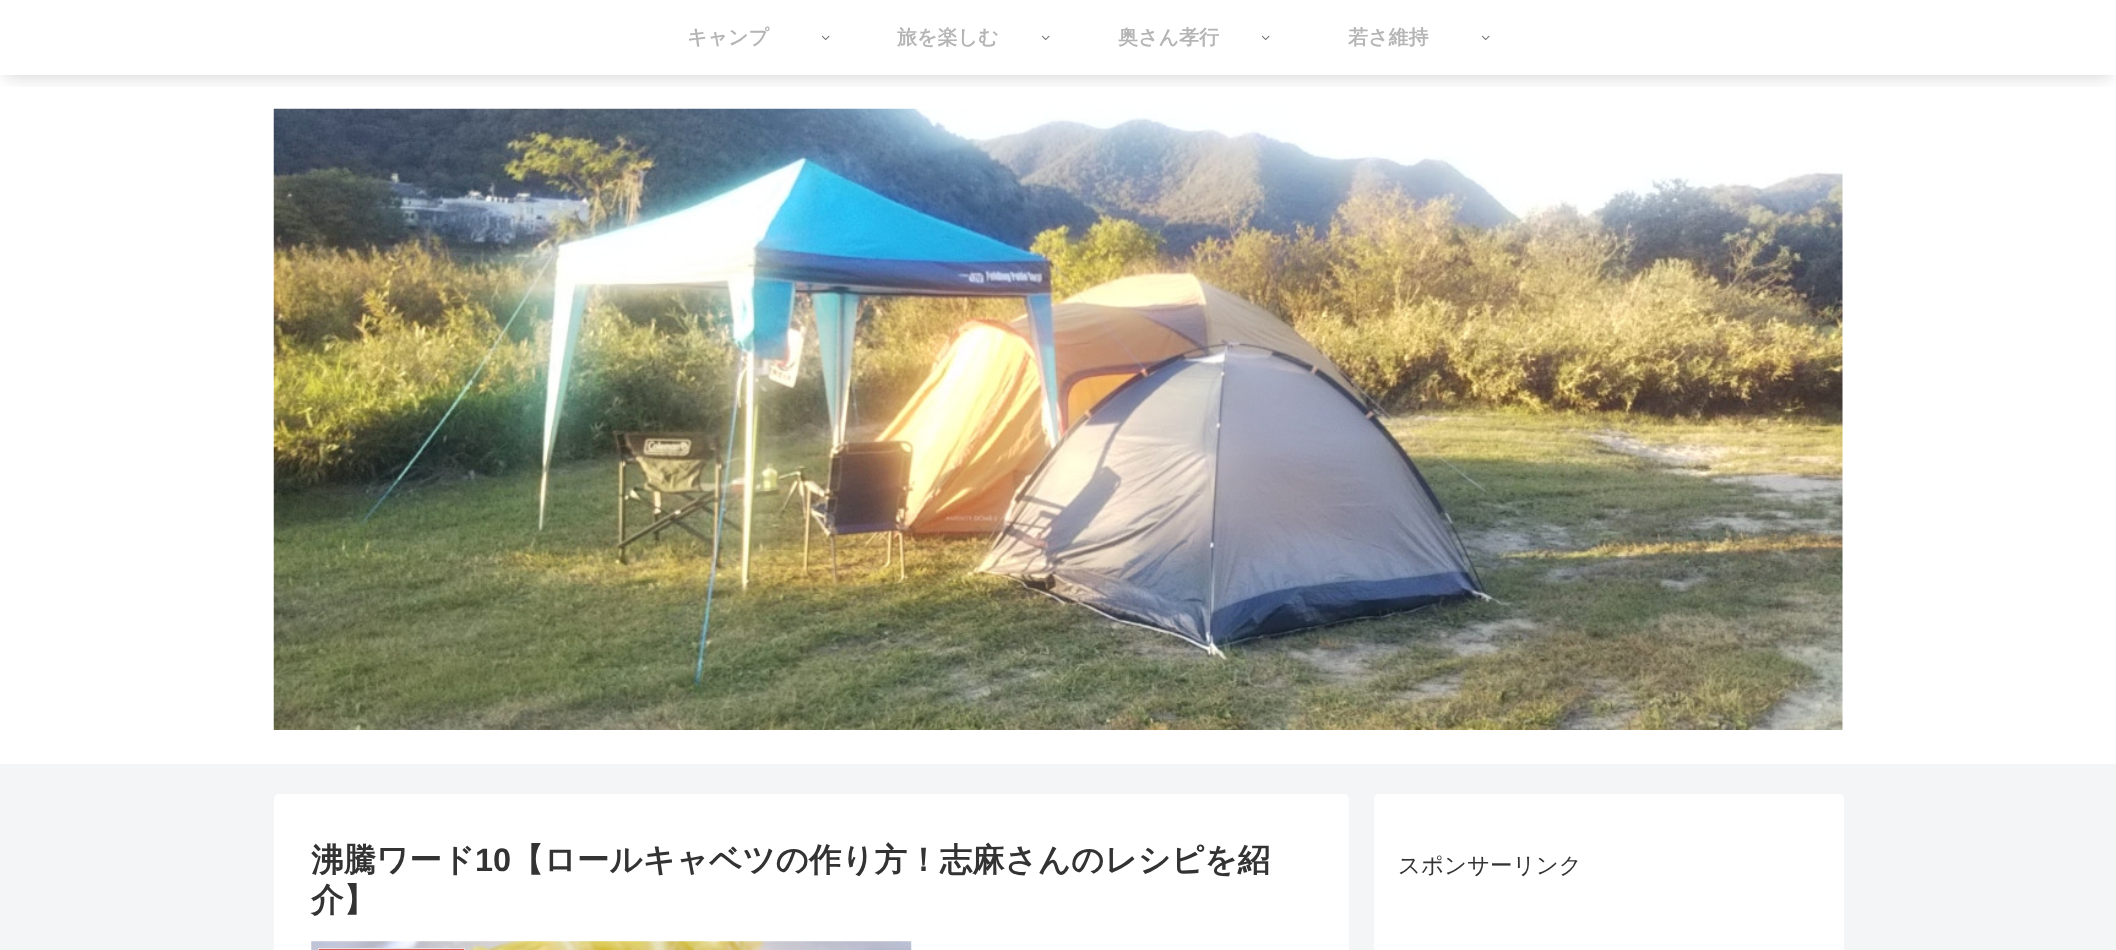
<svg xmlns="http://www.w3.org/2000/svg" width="2116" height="950">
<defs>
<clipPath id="clip1"><rect x="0" y="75" width="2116" height="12"/></clipPath>
</defs>
<rect width="100%" height="100%" fill="#f4f5f7"/>
<rect width="2116" height="764" fill="#fff"/>
<g clip-path="url(#clip1)">
<rect x="6" y="13" width="2104" height="62" fill="#00000033" filter="blur(9.5px)"/>
</g>
<text x="687" y="44" style="font-family:WenQuanYi Zen Hei;font-size:20px;font-weight:bold;fill:#b5b5b5">キャンプ</text>
<image x="821" y="35" width="9" height="6" href="media/1.png"/>
<text x="897" y="44" style="font-family:WenQuanYi Zen Hei;font-size:20px;font-weight:bold;fill:#b5b5b5">旅を楽しむ</text>
<image x="1041" y="35" width="9" height="6" href="media/1.png"/>
<text x="1118" y="44" style="font-family:WenQuanYi Zen Hei;font-size:20px;font-weight:bold;fill:#b5b5b5">奥さん孝行</text>
<image x="1261" y="35" width="9" height="6" href="media/1.png"/>
<text x="1348" y="44" style="font-family:WenQuanYi Zen Hei;font-size:20px;font-weight:bold;fill:#b5b5b5">若さ維持</text>
<image x="1481" y="35" width="9" height="6" href="media/1.png"/>
<image x="273" y="108" width="1570" height="622" href="media/2.png"/>
<rect x="274" y="794" width="1075" height="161" rx="5" fill="#fff"/>
<text x="311" y="871" style="font-family:WenQuanYi Zen Hei;font-size:32.5px;font-weight:bold;fill:#333">沸騰ワード</text>
<text x="475" y="871" style="font-family:Liberation Sans;font-size:32.5px;font-weight:bold;fill:#333">10</text>
<text x="511" y="871" style="font-family:WenQuanYi Zen Hei;font-size:32.5px;font-weight:bold;fill:#333">【ロールキャベツの作り方！志麻さんのレシピを紹</text>
<text x="311" y="911" style="font-family:WenQuanYi Zen Hei;font-size:32.5px;font-weight:bold;fill:#333">介】</text>
<image x="311" y="941" width="601" height="9" href="media/3.png"/>
<rect x="318" y="948" width="147" height="2" fill="#dd4b4be6"/>
<rect x="318.5" y="948.5" width="146" height="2" fill="none" stroke="#eeeeeee6"/>
<rect x="1374" y="794" width="470" height="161" rx="5" fill="#fff"/>
<text x="1398" y="873" style="font-family:WenQuanYi Zen Hei;font-size:22.5px;font-weight:500;fill:#333">スポンサーリンク</text>
</svg>
